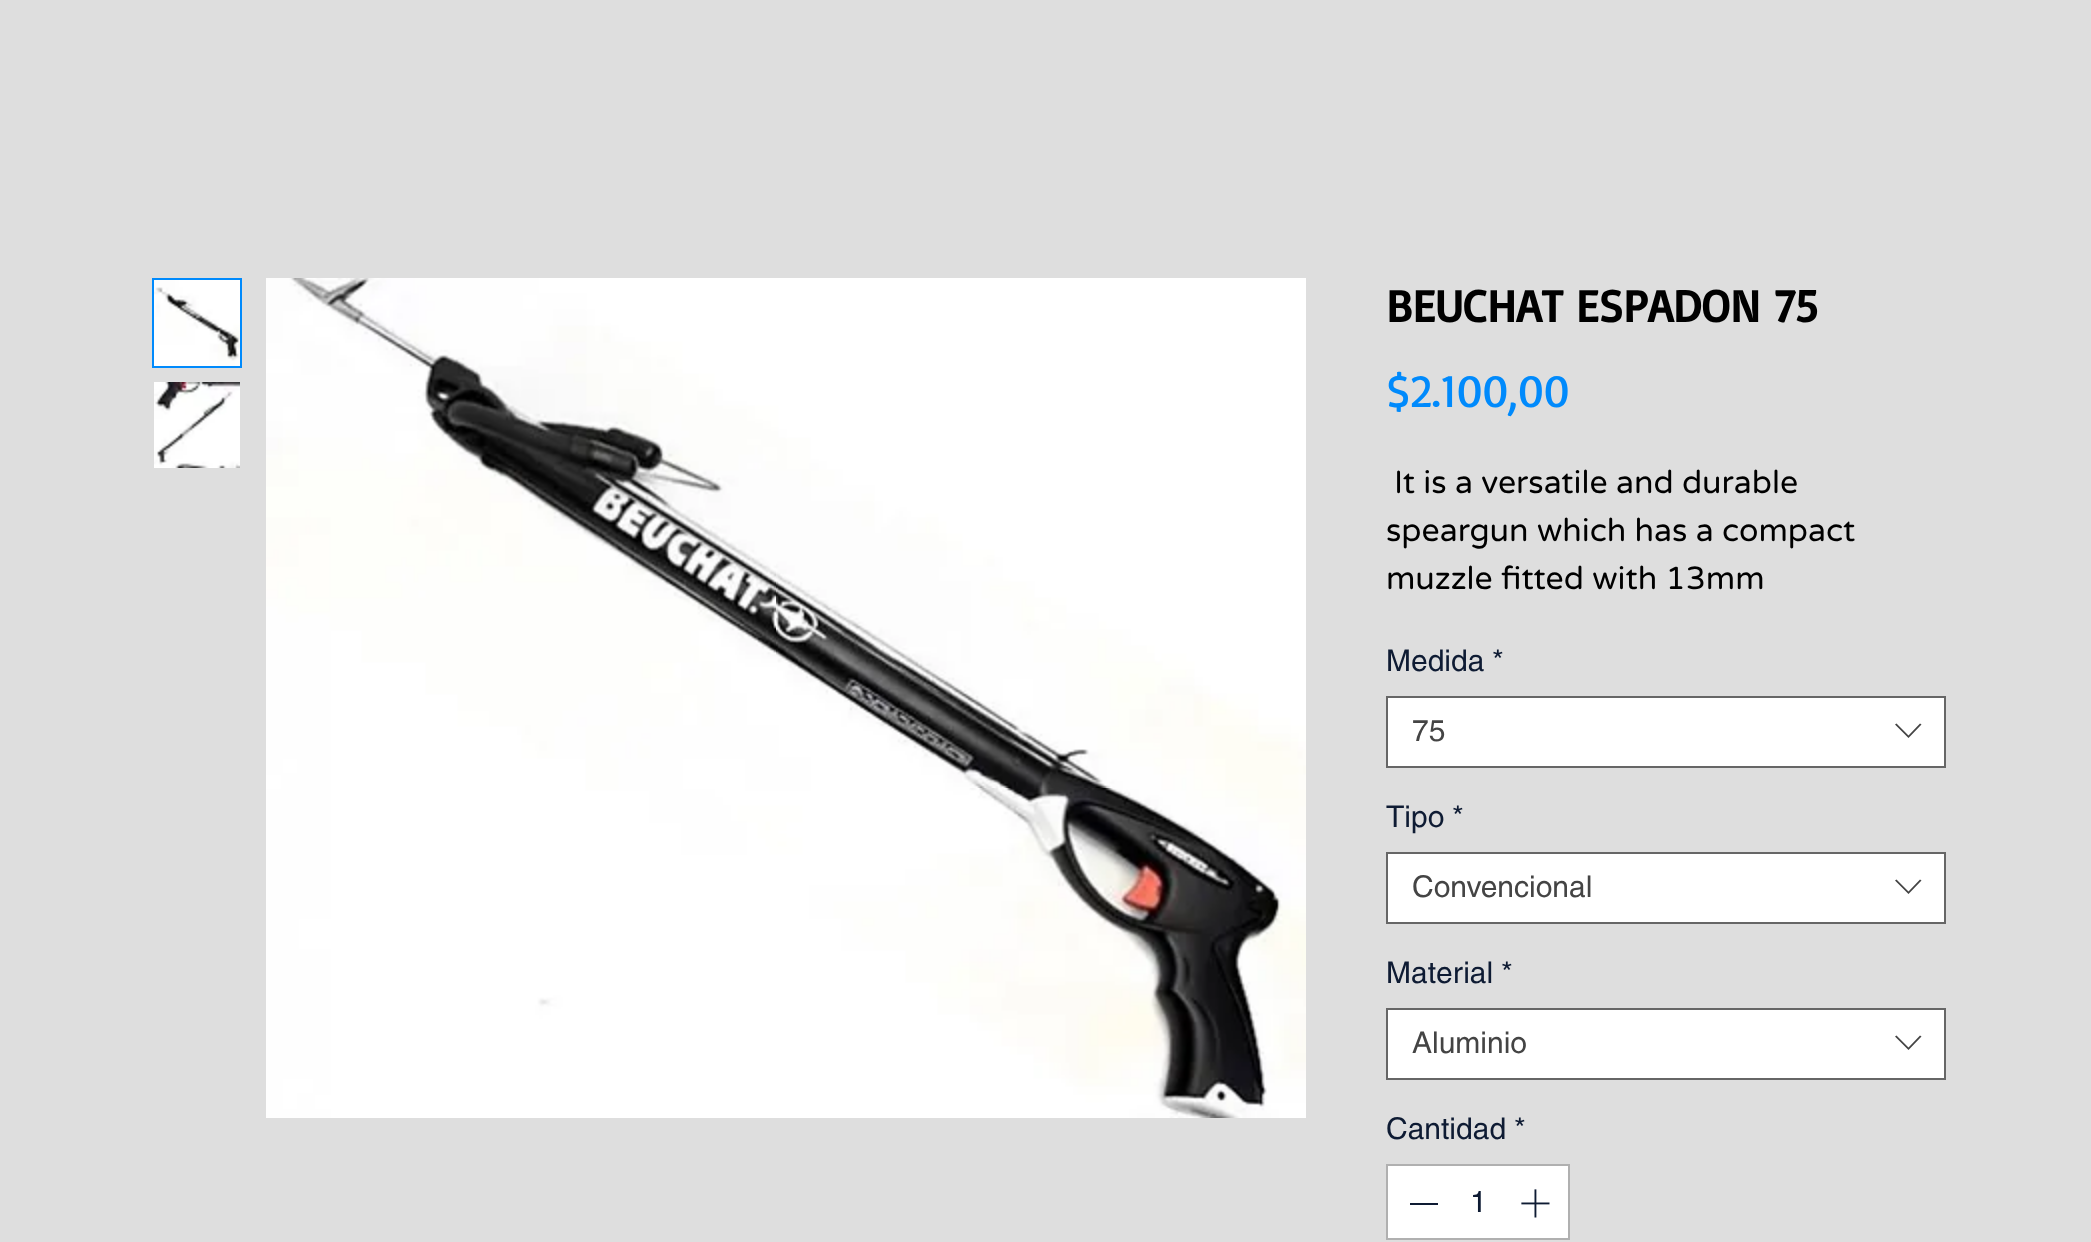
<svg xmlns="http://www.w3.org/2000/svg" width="2091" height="1242">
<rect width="100%" height="100%" fill="#dedede"/>
<rect x="153" y="279" width="88" height="88" fill="none" stroke="#008afc" stroke-width="2"/>
<image x="154" y="280" width="86" height="86" href="media/1.png"/>
<image x="154" y="382" width="86" height="86" href="media/2.png"/>
<image x="266" y="278" width="1040" height="840" href="media/3.png"/>
<text x="1386" y="322" style="font-family:Basic;font-size:46px;font-weight:bold;fill:#000">BEUCHAT ESPADON 75</text>
<text x="1386" y="407" style="font-family:Basic;font-size:46px;fill:#008afc">$2.100,00</text>
<text x="1394" y="493" style="font-family:Varela Round;font-size:32px;fill:#000">It is a versatile and durable</text>
<text x="1386" y="541" style="font-family:Varela Round;font-size:32px;fill:#000">speargun which has a compact</text>
<text x="1386" y="589" style="font-family:Varela Round;font-size:32px;fill:#000">muzzle fitted with 13mm</text>
<text x="1386" y="671" style="font-family:helvetica;font-size:30px;fill:#0e1b33">Medida</text>
<text x="1492" y="671" style="font-family:helvetica;font-size:30px;fill:#0e1b33">*</text>
<rect x="1387" y="697" width="558" height="70" fill="#fff" stroke="#666" stroke-width="2"/>
<text x="1412" y="741" style="font-family:helvetica;font-size:30px;fill:#444">75</text>
<path d="M1920 723.5l1.5 1l-13 13.5l-13.5-13.5l1.5-1l12 12z" fill="#444" fill-rule="evenodd"/>
<text x="1386" y="827" style="font-family:helvetica;font-size:30px;fill:#0e1b33">Tipo</text>
<text x="1452" y="827" style="font-family:helvetica;font-size:30px;fill:#0e1b33">*</text>
<rect x="1387" y="853" width="558" height="70" fill="#fff" stroke="#666" stroke-width="2"/>
<text x="1412" y="897" style="font-family:helvetica;font-size:30px;fill:#444">Convencional</text>
<path d="M1920 879.5l1.5 1l-13 13.5l-13.5-13.5l1.5-1l12 12z" fill="#444" fill-rule="evenodd"/>
<text x="1386" y="983" style="font-family:helvetica;font-size:30px;fill:#0e1b33">Material</text>
<text x="1501" y="983" style="font-family:helvetica;font-size:30px;fill:#0e1b33">*</text>
<rect x="1387" y="1009" width="558" height="70" fill="#fff" stroke="#666" stroke-width="2"/>
<text x="1412" y="1053" style="font-family:helvetica;font-size:30px;fill:#444">Aluminio</text>
<path d="M1920 1035.5l1.5 1l-13 13.5l-13.5-13.5l1.5-1l12 12z" fill="#444" fill-rule="evenodd"/>
<text x="1386" y="1139" style="font-family:helvetica;font-size:30px;fill:#0e1b33">Cantidad</text>
<text x="1514" y="1139" style="font-family:helvetica;font-size:30px;fill:#0e1b33">*</text>
<rect x="1387" y="1165" width="182" height="74" fill="#fff" stroke="#b0b0b0" stroke-width="2"/>
<rect x="1410" y="1203" width="28" height="2" fill="#0e1b33"/>
<text x="1470" y="1212" style="font-family:helvetica;font-size:30px;fill:#0e1b33">1</text>
<image x="1521" y="1189" width="29" height="29" href="media/4.png"/>
</svg>
